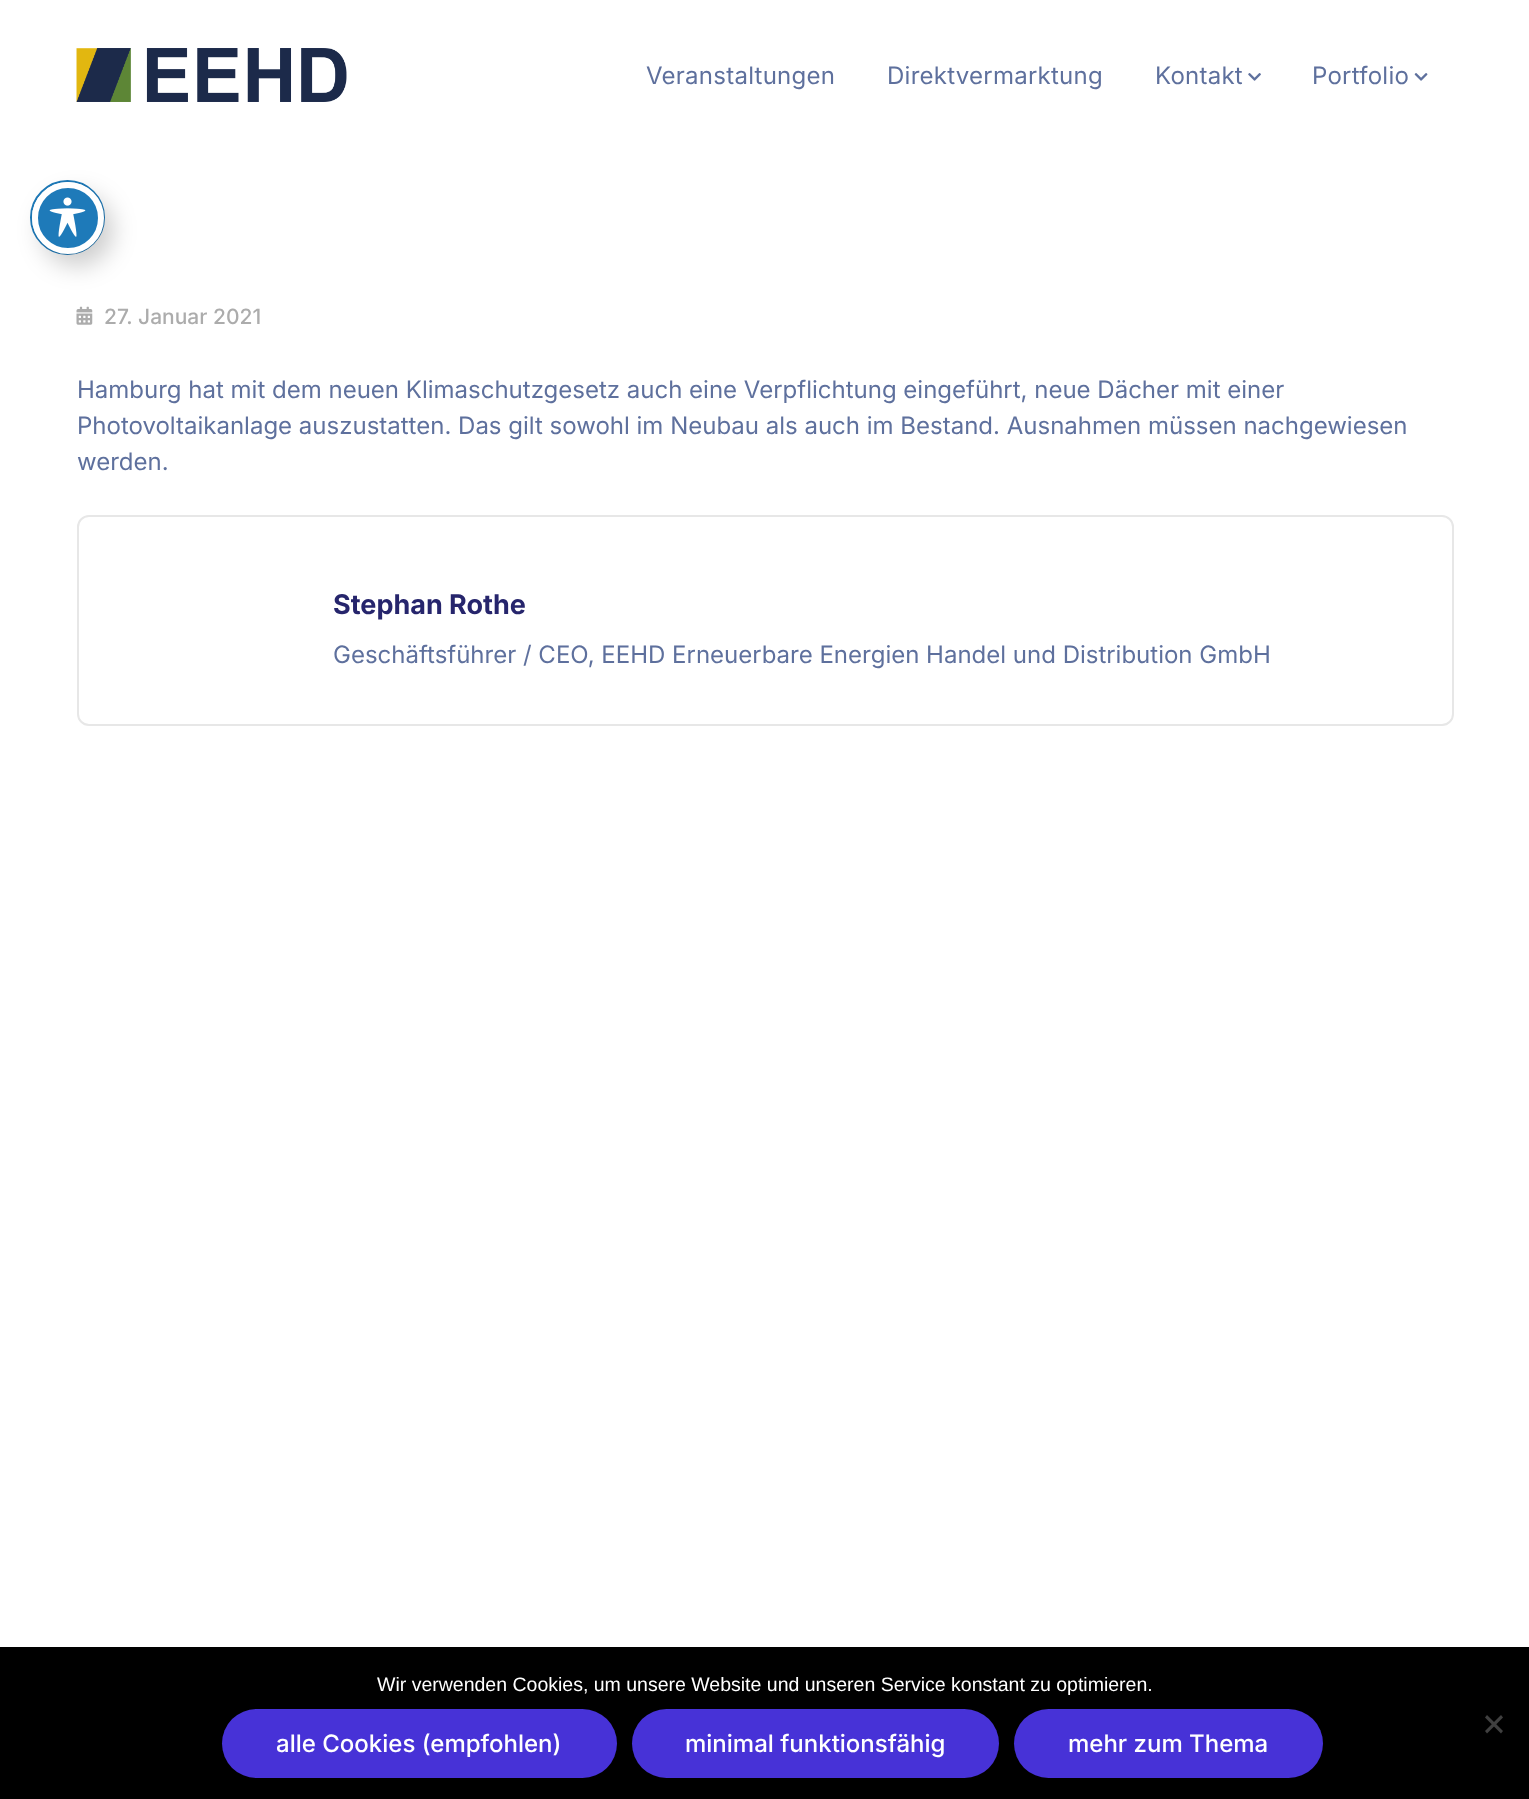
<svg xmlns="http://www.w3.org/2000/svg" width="1529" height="1799">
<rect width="100%" height="100%" fill="#fff"/>
<image x="76" y="48" width="271" height="54" href="media/1.png"/>
<text x="646" y="84" style="font-family:Inter;font-size:24px;letter-spacing:0.25px;fill:#5e709d">Veranstaltungen</text>
<text x="887" y="84" style="font-family:Inter;font-size:24px;letter-spacing:0.25px;fill:#5e709d">Direktvermarktung</text>
<text x="1155" y="84" style="font-family:Inter;font-size:24px;letter-spacing:0.25px;fill:#5e709d">Kontakt</text>
<image x="1248" y="73" width="13" height="8" href="media/2.png"/>
<text x="1312" y="84" style="font-family:Inter;font-size:24px;letter-spacing:0.25px;fill:#5e709d">Portfolio</text>
<image x="1414" y="73" width="14" height="8" href="media/3.png"/>
<image x="76" y="306" width="17" height="19" href="media/4.png"/>
<text x="104" y="324" style="font-family:Inter;font-size:21px;font-weight:500;fill:#acacac">27. Januar 2021</text>
<text x="77" y="398" style="font-family:Inter;font-size:24px;fill:#5e709d">Hamburg hat mit dem neuen Klimaschutzgesetz auch eine Verpflichtung eingeführt, neue Dächer mit einer</text>
<text x="77" y="434" style="font-family:Inter;font-size:24px;fill:#5e709d">Photovoltaikanlage auszustatten. Das gilt sowohl im Neubau als auch im Bestand. Ausnahmen müssen nachgewiesen</text>
<text x="77" y="470" style="font-family:Inter;font-size:24px;fill:#5e709d">werden.</text>
<rect x="78" y="516" width="1375" height="209" rx="11" fill="none" stroke="#e7e7e7" stroke-width="2"/>
<text x="333" y="614" style="font-family:Inter;font-size:27px;font-weight:bold;fill:#26256c">Stephan Rothe</text>
<text x="333" y="663" style="font-family:Inter;font-size:24px;fill:#5e709d">Geschäftsführer / CEO, EEHD Erneuerbare Energien Handel und Distribution GmbH</text>
<circle cx="67.5" cy="217.5" r="36.5" fill="none" stroke="#1e7ab9" stroke-width="2"/>
<rect x="41" y="194" width="72" height="72" rx="36" fill="#00000033" filter="blur(12px)"/>
<circle cx="68" cy="218" r="33" fill="#1e7ab9" stroke="#fff" stroke-width="6"/>
<image x="49" y="197" width="37" height="40" href="media/5.png"/>
<rect y="1647" width="1529" height="152" fill="#000"/>
<text x="377" y="1691" style="font-family:Liberation Sans;font-size:19.5px;fill:#fff">Wir verwenden Cookies, um unsere Website und unseren Service konstant zu optimieren.</text>
<path d="M1501 1715l2 2.5l-16 16l-2-2.5z" fill="#404040"/>
<path d="M1485 1717.5l2-2.5l16 16l-2 2.5z" fill="#404040"/>
<rect x="222" y="1709" width="395" height="69" rx="34.5" fill="#4732d7"/>
<text x="276" y="1752" style="font-family:Inter;font-size:24px;font-weight:500;fill:#fff">alle Cookies (empfohlen)</text>
<rect x="632" y="1709" width="367" height="69" rx="34.5" fill="#4732d7"/>
<text x="685" y="1752" style="font-family:Inter;font-size:24px;font-weight:500;fill:#fff">minimal funktionsfähig</text>
<rect x="1014" y="1709" width="309" height="69" rx="34.5" fill="#4732d7"/>
<text x="1068" y="1752" style="font-family:Inter;font-size:24px;font-weight:500;fill:#fff">mehr zum Thema</text>
</svg>
